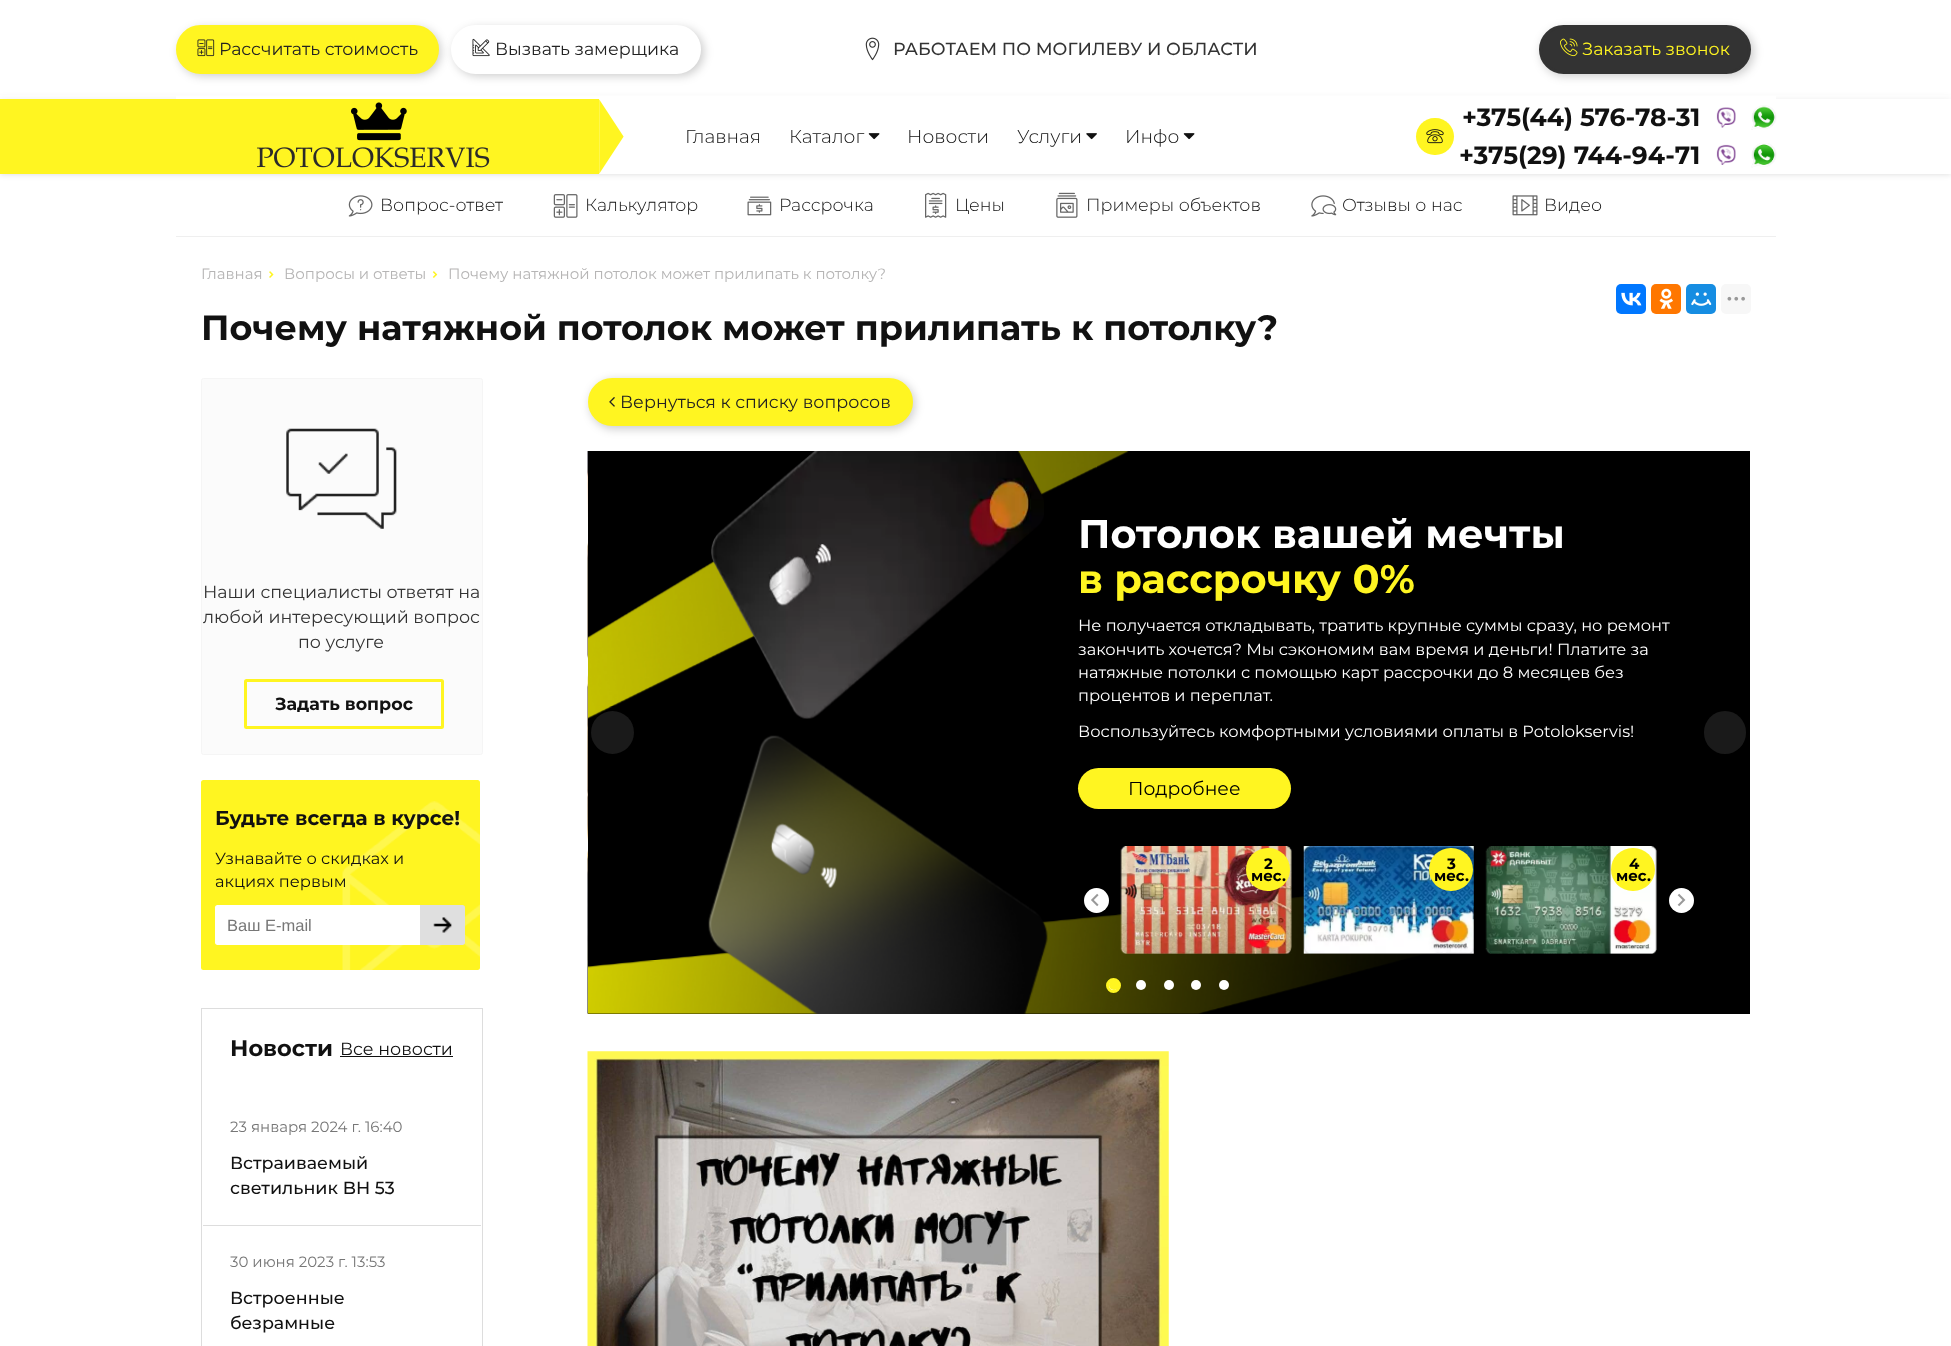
<svg xmlns="http://www.w3.org/2000/svg" width="1951" height="1346">
<rect width="100%" height="100%" fill="#fff"/>
<rect y="99" width="1951" height="75" fill="#00000026" filter="blur(3px)"/>
<rect y="95" width="1951" height="4" fill="#ffffff99"/>
<rect x="176" y="96" width="1600" height="3" fill="#fff"/>
<rect x="179" y="28" width="262" height="48" rx="24" fill="#00000033" filter="blur(5px)"/>
<rect x="177.5" y="26.5" width="260" height="46" rx="23" fill="#fff521" stroke="#fff521" stroke-width="3"/>
<image x="197" y="39" width="18" height="18" href="media/1.png"/>
<text x="219" y="55" style="font-family:Montserrat;font-size:17.5px;fill:#222">Рассчитать стоимость</text>
<rect x="454" y="28" width="250" height="48" rx="24" fill="#00000033" filter="blur(5px)"/>
<rect x="452.5" y="26.5" width="247" height="46" rx="23" fill="#fff" stroke="#fff" stroke-width="3"/>
<image x="472" y="38" width="18" height="19" href="media/2.png"/>
<text x="495" y="55" style="font-family:Montserrat;font-size:17.5px;fill:#222">Вызвать замерщика</text>
<image x="865" y="37" width="15" height="24" href="media/3.png"/>
<text x="893" y="55" style="font-family:Montserrat;font-size:17.5px;font-weight:500;fill:#333">РАБОТАЕМ ПО МОГИЛЕВУ И ОБЛАСТИ</text>
<rect x="1541" y="28" width="213" height="48" rx="24" fill="#00000033" filter="blur(5px)"/>
<rect x="1540.5" y="26.5" width="209" height="46" rx="23" fill="#333" stroke="#333" stroke-width="3"/>
<image x="1560" y="38" width="18" height="19" href="media/4.png"/>
<text x="1582" y="55" style="font-family:Montserrat;font-size:17.5px;fill:#fff521">Заказать звонок</text>
<rect x="599" y="99" width="1352" height="75" fill="#fff"/>
<rect y="99" width="176" height="75" fill="#fff521"/>
<image x="176" y="99" width="448" height="75" href="media/5.png"/>
<text x="685" y="143" style="font-family:Montserrat;font-size:18.75px;font-weight:300;fill:#111">Главная</text>
<text x="789" y="143" style="font-family:Montserrat;font-size:18.75px;font-weight:300;fill:#111">Каталог</text>
<image x="868" y="133" width="12" height="7" href="media/6.png"/>
<text x="907" y="143" style="font-family:Montserrat;font-size:18.75px;font-weight:300;fill:#111">Новости</text>
<text x="1017" y="143" style="font-family:Montserrat;font-size:18.75px;font-weight:300;fill:#111">Услуги</text>
<image x="1086" y="133" width="11" height="7" href="media/7.png"/>
<text x="1125" y="143" style="font-family:Montserrat;font-size:18.75px;font-weight:300;fill:#111">Инфо</text>
<image x="1183" y="133" width="12" height="7" href="media/6.png"/>
<rect x="1416" y="118" width="38" height="37" rx="18.5" fill="#fff521"/>
<image x="1426" y="129" width="18" height="15" href="media/8.png"/>
<text x="1462" y="126" style="font-family:Montserrat;font-size:25px;font-weight:bold;fill:#111">+375(44) 576-78-31</text>
<image x="1716" y="107" width="20" height="21" href="media/9.png"/>
<image x="1751" y="105" width="26" height="25" href="media/10.png"/>
<text x="1459" y="164" style="font-family:Montserrat;font-size:25px;font-weight:bold;fill:#111">+375(29) 744-94-71</text>
<image x="1716" y="144" width="20" height="21" href="media/11.png"/>
<image x="1751" y="143" width="26" height="25" href="media/12.png"/>
<image x="348" y="195" width="25" height="22" href="media/13.png"/>
<text x="380" y="211" style="font-family:Montserrat;font-size:17.5px;font-weight:300;fill:#111">Вопрос-ответ</text>
<image x="553" y="194" width="25" height="24" href="media/14.png"/>
<text x="585" y="211" style="font-family:Montserrat;font-size:17.5px;font-weight:300;fill:#111">Калькулятор</text>
<image x="747" y="196" width="25" height="20" href="media/15.png"/>
<text x="779" y="211" style="font-family:Montserrat;font-size:17.5px;font-weight:300;fill:#111">Рассрочка</text>
<image x="925" y="192" width="22" height="26" href="media/16.png"/>
<text x="955" y="211" style="font-family:Montserrat;font-size:17.5px;font-weight:300;fill:#111">Цены</text>
<image x="1056" y="192" width="22" height="26" href="media/17.png"/>
<text x="1086" y="211" style="font-family:Montserrat;font-size:17.5px;font-weight:300;fill:#111">Примеры объектов</text>
<image x="1311" y="195" width="26" height="22" href="media/18.png"/>
<text x="1342" y="211" style="font-family:Montserrat;font-size:17.5px;font-weight:300;fill:#111">Отзывы о нас</text>
<image x="1512" y="195" width="26" height="21" href="media/19.png"/>
<text x="1544" y="211" style="font-family:Montserrat;font-size:17.5px;font-weight:300;fill:#111">Видео</text>
<rect x="176" y="236" width="1600" height="1" fill="#efefef"/>
<text x="201" y="279" style="font-family:Montserrat;font-size:15px;fill:#b6b5b5">Главная</text>
<image x="269" y="271" width="5" height="7" href="media/20.png"/>
<text x="284" y="279" style="font-family:Montserrat;font-size:15px;fill:#b6b5b5">Вопросы и ответы</text>
<image x="432" y="271" width="6" height="7" href="media/21.png"/>
<text x="448" y="279" style="font-family:Montserrat;font-size:15px;fill:#b6b5b5">Почему натяжной потолок может прилипать к потолку?</text>
<rect x="1616" y="284" width="30" height="30" rx="5" fill="#07f"/>
<image x="1621" y="292" width="21" height="14" href="media/22.png"/>
<rect x="1651" y="284" width="30" height="30" rx="5" fill="#f70"/>
<image x="1659" y="288" width="14" height="21" href="media/23.png"/>
<rect x="1686" y="284" width="30" height="30" rx="5" fill="#168de2"/>
<image x="1691" y="292" width="21" height="14" href="media/24.png"/>
<rect x="1721" y="284" width="30" height="30" rx="5" fill="#f7f7f7"/>
<image x="1727" y="296" width="18" height="5" href="media/25.png"/>
<text x="201" y="340" style="font-family:Montserrat;font-size:35px;font-weight:bold;fill:#111">Почему натяжной потолок может прилипать к потолку?</text>
<rect x="201.5" y="378.5" width="281" height="376" rx="2" fill="#fbfbfb" stroke="#f5f5f5"/>
<image x="286" y="428" width="111" height="101" href="media/26.png"/>
<text x="203" y="598" style="font-family:Montserrat;font-size:17.5px;fill:#333">Наши специалисты ответят на</text>
<text x="203" y="623" style="font-family:Montserrat;font-size:17.5px;fill:#333">любой интересующий вопрос</text>
<text x="298" y="648" style="font-family:Montserrat;font-size:17.5px;fill:#333">по услуге</text>
<rect x="245.5" y="680.5" width="197" height="47" rx="1" fill="none" stroke="#fff521" stroke-width="3"/>
<text x="275" y="710" style="font-family:Montserrat;font-size:17.5px;font-weight:bold;fill:#111">Задать вопрос</text>
<rect x="201" y="780" width="279" height="190" rx="2.5" fill="#fff521"/>
<image x="342" y="801" width="138" height="169" href="media/27.png"/>
<text x="215" y="825" style="font-family:Montserrat;font-size:20px;font-weight:bold;fill:#111">Будьте всегда в курсе!</text>
<text x="215" y="864" style="font-family:Montserrat;font-size:16.25px;fill:#111">Узнавайте о скидках и</text>
<text x="215" y="887" style="font-family:Montserrat;font-size:16.25px;fill:#111">акциях первым</text>
<path d="M217.5 905h202.5v40h-202.5c-1.5 0-2.5-1-2.5-2.5v-35c0-1.5 1-2.5 2.5-2.5z" fill="#fff"/>
<text x="227" y="931" style="font-family:Liberation Sans;font-size:16.5px;fill:#777">Ваш E-mail</text>
<path d="M420 905h42.5c1.5 0 2.5 1 2.5 2.5v35c0 1.5-1 2.5-2.5 2.5h-42.5z" fill="#dfdfdf"/>
<image x="433" y="917" width="19" height="16" href="media/28.png"/>
<rect x="201.5" y="1008.5" width="281" height="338" fill="none" stroke="#ddd"/>
<text x="230" y="1056" style="font-family:Montserrat;font-size:22.5px;font-weight:bold;fill:#111">Новости</text>
<text x="340" y="1055" style="font-family:Montserrat;font-size:17.5px;fill:#111">Все новости</text>
<rect x="340" y="1056" width="113" height="1" fill="#111"/>
<rect x="203" y="1225" width="278" height="1" fill="#ddd"/>
<text x="230" y="1132" style="font-family:Montserrat;font-size:15px;fill:#777">23 января 2024 г. 16:40</text>
<text x="230" y="1169" style="font-family:Montserrat;font-size:17.5px;font-weight:500;fill:#111">Встраиваемый</text>
<text x="230" y="1194" style="font-family:Montserrat;font-size:17.5px;font-weight:500;fill:#111">светильник BH 53</text>
<text x="230" y="1267" style="font-family:Montserrat;font-size:15px;fill:#777">30 июня 2023 г. 13:53</text>
<text x="230" y="1304" style="font-family:Montserrat;font-size:17.5px;font-weight:500;fill:#111">Встроенные</text>
<text x="230" y="1329" style="font-family:Montserrat;font-size:17.5px;font-weight:500;fill:#111">безрамные</text>
<rect x="590" y="380" width="325" height="49" rx="24.5" fill="#00000033" filter="blur(5px)"/>
<rect x="589.5" y="379.5" width="322" height="45" rx="22.5" fill="#fff521" stroke="#fff521" stroke-width="3"/>
<image x="609" y="397" width="6" height="10" href="media/29.png"/>
<text x="620" y="408" style="font-family:Montserrat;font-size:17.5px;fill:#222">Вернуться к списку вопросов</text>
<image x="587" y="451" width="1" height="563" href="media/30.png"/>
<rect x="588" y="451" width="1162" height="563" fill="#000"/>
<image x="588" y="451" width="850" height="563" href="media/31.png"/>
<image x="711" y="451" width="333" height="268" href="media/32.png"/>
<image x="708" y="735" width="340" height="279" href="media/33.png"/>
<text x="1078" y="548" style="font-family:Montserrat;font-size:40px;font-weight:bold;fill:#fff">Потолок вашей мечты</text>
<text x="1078" y="593" style="font-family:Montserrat;font-size:40px;font-weight:bold;fill:#fff521">в рассрочку 0%</text>
<text x="1078" y="631" style="font-family:Montserrat;font-size:16.25px;fill:#fff">Не получается откладывать, тратить крупные суммы сразу, но ремонт</text>
<text x="1078" y="655" style="font-family:Montserrat;font-size:16.25px;fill:#fff">закончить хочется? Мы сэкономим вам время и деньги! Платите за</text>
<text x="1078" y="678" style="font-family:Montserrat;font-size:16.25px;fill:#fff">натяжные потолки с помощью карт рассрочки до 8 месяцев без</text>
<text x="1078" y="701" style="font-family:Montserrat;font-size:16.25px;fill:#fff">процентов и переплат.</text>
<text x="1078" y="737" style="font-family:Montserrat;font-size:16.25px;fill:#fff">Воспользуйтесь комфортными условиями оплаты в Potolokservis!</text>
<rect x="1078" y="768" width="213" height="41" rx="20.5" fill="#fff521"/>
<text x="1128" y="795" style="font-family:Montserrat;font-size:18.75px;fill:#000">Подробнее</text>
<image x="1120" y="846" width="172" height="108" href="media/34.png"/>
<rect x="1246" y="848" width="44" height="43" rx="21.5" fill="#fff521"/>
<text x="1264" y="869" style="font-family:Montserrat;font-size:15px;font-weight:bold;fill:#000">2</text>
<text x="1251" y="881" style="font-family:Montserrat;font-size:15px;font-weight:bold;fill:#000">мес.</text>
<image x="1303" y="846" width="171" height="108" href="media/35.png"/>
<rect x="1429" y="848" width="44" height="43" rx="21.5" fill="#fff521"/>
<text x="1447" y="869" style="font-family:Montserrat;font-size:15px;font-weight:bold;fill:#000">3</text>
<text x="1434" y="881" style="font-family:Montserrat;font-size:15px;font-weight:bold;fill:#000">мес.</text>
<image x="1485" y="846" width="172" height="108" href="media/36.png"/>
<rect x="1611" y="848" width="44" height="43" rx="21.5" fill="#fff521"/>
<text x="1629" y="869" style="font-family:Montserrat;font-size:15px;font-weight:bold;fill:#000">4</text>
<text x="1616" y="881" style="font-family:Montserrat;font-size:15px;font-weight:bold;fill:#000">мес.</text>
<circle cx="1096.5" cy="900.5" r="12.5" fill="#fff"/>
<image x="1091" y="893" width="8" height="14" href="media/37.png"/>
<circle cx="1681.5" cy="900.5" r="12.5" fill="#fff"/>
<image x="1677" y="893" width="9" height="14" href="media/38.png"/>
<circle cx="612.5" cy="732.5" r="21.5" fill="#1a1a1a"/>
<rect x="1704" y="711" width="42" height="43" rx="21" fill="#1a1a1a"/>
<circle cx="1113.5" cy="985.5" r="6" fill="#fff" stroke="#fff521" stroke-width="3"/>
<circle cx="1114" cy="985" r="5" fill="#fff521"/>
<circle cx="1141" cy="985" r="5" fill="#fff"/>
<circle cx="1169" cy="985" r="5" fill="#fff"/>
<circle cx="1196" cy="985" r="5" fill="#fff"/>
<circle cx="1224" cy="985" r="5" fill="#fff"/>
<image x="587" y="1051" width="582" height="295" href="media/39.png"/>
</svg>
